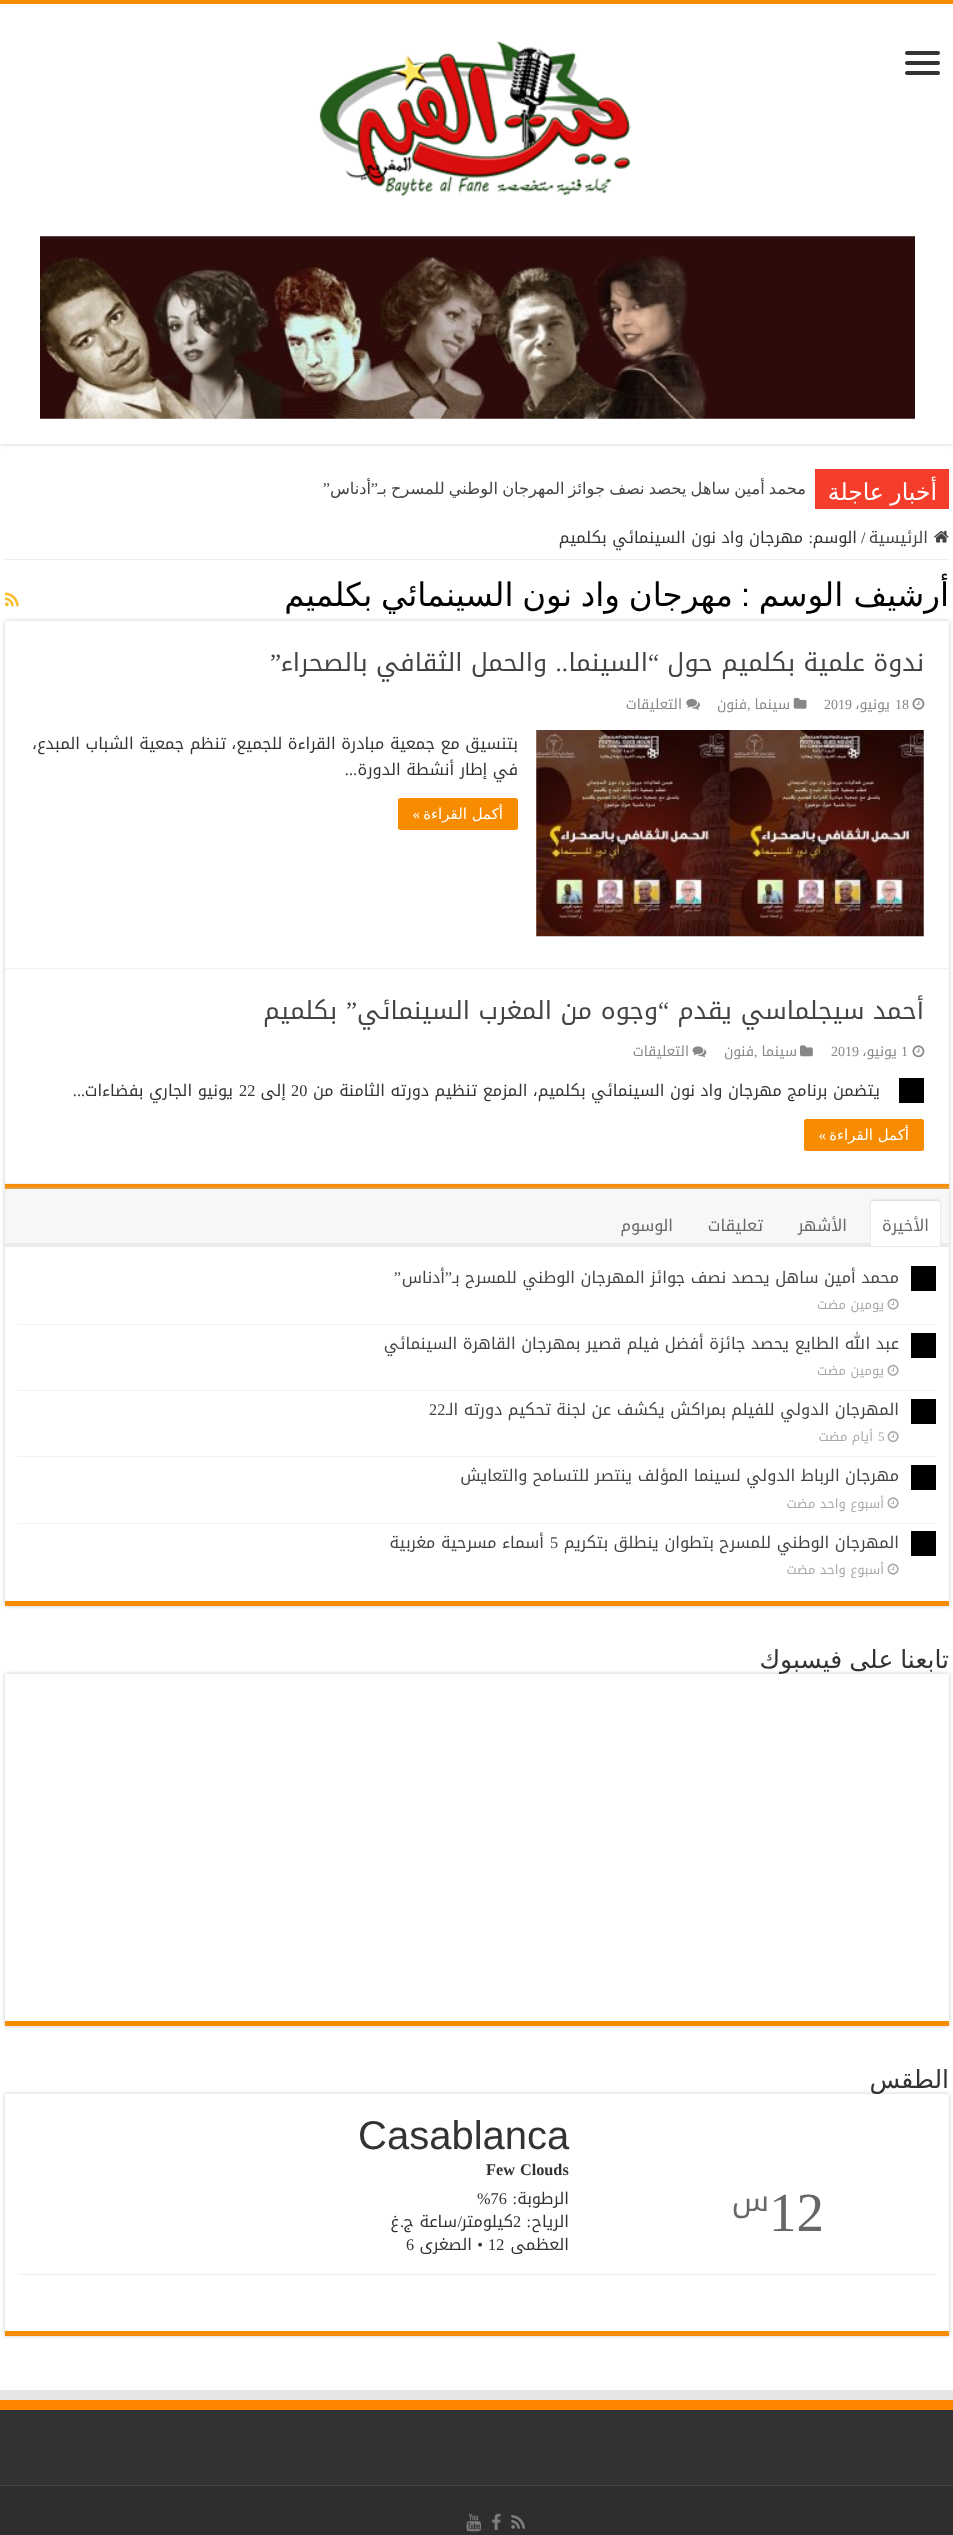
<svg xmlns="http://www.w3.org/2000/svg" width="953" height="2535">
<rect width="100%" height="100%" fill="#fff"/>
<rect width="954" height="444" fill="#cacaca" filter="blur(2px)"/>
<rect y="4" width="953" height="440" fill="#fff"/>
<rect width="953" height="4" fill="#f88c00"/>
<rect x="905" y="51" width="35" height="4" rx="2" fill="#333"/>
<rect x="905" y="61" width="35" height="4" rx="2" fill="#333"/>
<rect x="905" y="71" width="35" height="4" rx="2" fill="#333"/>
<image x="319" y="41" width="312" height="156" href="media/1.png"/>
<image x="40" y="236" width="875" height="183" href="media/2.png"/>
<rect x="5" y="469" width="944" height="40" fill="#cacaca" filter="blur(0.5px)"/>
<rect x="5" y="469" width="810" height="40" fill="#fff"/>
<rect x="815" y="469" width="134" height="40" fill="#f43d2a"/>
<text x="937" y="500" word-spacing="-1" style="font-family:DejaVu Sans;font-size:23.5px;direction:rtl;fill:#fff">أخبار عاجلة</text>
<text x="378" y="494" style="font-family:Liberation Serif;font-size:16.25px;direction:rtl;fill:#444">”</text>
<text x="806" y="494" word-spacing="-1" style="font-family:DejaVu Sans;font-size:16.25px;direction:rtl;fill:#444">محمد أمين ساهل يحصد نصف جوائز المهرجان الوطني للمسرح بـ</text>
<text x="371" y="494" style="font-family:DejaVu Sans;font-size:16.25px;direction:rtl;fill:#444">أدناس</text>
<text x="330" y="494" style="font-family:Liberation Serif;font-size:16.25px;direction:rtl;fill:#444">”</text>
<rect x="5" y="559" width="944" height="1" fill="#eee"/>
<image x="934" y="530" width="15" height="13" href="media/3.png"/>
<text x="928" y="543" style="font-family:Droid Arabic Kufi;font-size:16.25px;direction:rtl;fill:#444">الرئيسية</text>
<text x="861" y="543" style="font-family:Liberation Serif;font-size:16.25px;fill:#333">/</text>
<text x="857" y="543" style="font-family:Droid Arabic Kufi;font-size:16.25px;direction:rtl;fill:#333">الوسم</text>
<text x="813" y="543" style="font-family:Liberation Serif;font-size:16.25px;direction:rtl;fill:#333">:</text>
<text x="803" y="543" style="font-family:Droid Arabic Kufi;font-size:16.25px;direction:rtl;fill:#333">مهرجان واد نون السينمائي بكلميم</text>
<text x="949" y="606" style="font-family:DejaVu Sans;font-size:32.5px;direction:rtl;fill:#000">أرشيف الوسم</text>
<text x="750" y="606" style="font-family:Liberation Sans;font-size:32.5px;direction:rtl;fill:#000">:</text>
<text x="733" y="606" word-spacing="-1.5" style="font-family:DejaVu Sans;font-size:32.5px;direction:rtl;fill:#000">مهرجان واد نون السينمائي بكلميم</text>
<image x="5" y="592" width="14" height="15" href="media/4.png"/>
<rect x="5" y="621" width="944" height="568" fill="#cacaca" filter="blur(2px)"/>
<rect x="5" y="621" width="944" height="562" fill="#fff"/>
<rect x="5" y="1184" width="944" height="5" fill="#f88c00"/>
<rect x="5" y="968" width="944" height="1" fill="#f2f2f2"/>
<text x="924" y="671" style="font-family:Droid Arabic Kufi;font-size:25px;direction:rtl;fill:#444">ندوة علمية بكلميم حول</text>
<text x="659" y="671" style="font-family:Liberation Serif;font-size:25px;direction:rtl;fill:#444">“</text>
<text x="648" y="671" style="font-family:Droid Arabic Kufi;font-size:25px;direction:rtl;fill:#444">السينما</text>
<text x="547" y="671" style="font-family:Droid Arabic Kufi;font-size:25px;direction:rtl;fill:#444">والحمل الثقافي بالصحراء</text>
<text x="281" y="671" style="font-family:Liberation Serif;font-size:25px;direction:rtl;fill:#444">”</text>
<text x="568" y="671" style="font-family:Liberation Serif;font-size:25px;direction:rtl;fill:#444">..</text>
<image x="912" y="697" width="13" height="13" href="media/5.png"/>
<text x="895" y="709" style="font-family:Liberation Serif;font-size:14px;fill:#888">18</text>
<text x="890" y="709" style="font-family:Droid Arabic Kufi;font-size:14px;direction:rtl;fill:#888">يونيو،</text>
<text x="824" y="709" style="font-family:Liberation Serif;font-size:14px;fill:#888">2019</text>
<image x="793" y="697" width="14" height="12" href="media/6.png"/>
<text x="790" y="709" style="font-family:Droid Arabic Kufi;font-size:14px;direction:rtl;fill:#888">سينما</text>
<text x="747" y="709" style="font-family:Liberation Serif;font-size:14px;fill:#888">,</text>
<text x="747" y="709" style="font-family:Droid Arabic Kufi;font-size:14px;direction:rtl;fill:#888">فنون</text>
<image x="686" y="698" width="14" height="12" href="media/7.png"/>
<text x="682" y="709" style="font-family:Droid Arabic Kufi;font-size:14px;direction:rtl;fill:#888">التعليقات</text>
<image x="536" y="730" width="388" height="207" href="media/8.png"/>
<text x="518" y="749" style="font-family:Droid Arabic Kufi;font-size:16.25px;direction:rtl;fill:#333">بتنسيق مع جمعية مبادرة القراءة للجميع، تنظم جمعية الشباب المبدع،</text>
<text x="518" y="775" style="font-family:Droid Arabic Kufi;font-size:16.25px;direction:rtl;fill:#333">في إطار أنشطة الدورة</text>
<text x="357" y="775" style="font-family:Liberation Serif;font-size:16.25px;direction:rtl;fill:#333">...</text>
<rect x="398" y="798" width="120" height="32" rx="2.5" fill="#f88c00"/>
<text x="503" y="819" style="font-family:DejaVu Sans;font-size:15px;direction:rtl;fill:#fff">أكمل القراءة</text>
<text x="420" y="819" style="font-family:Liberation Serif;font-size:15px;direction:rtl;fill:#fff">»</text>
<rect x="5" y="1183" width="944" height="1" fill="#f2f2f2"/>
<text x="924" y="1019" style="font-family:Droid Arabic Kufi;font-size:25px;direction:rtl;fill:#444">أحمد سيجلماسي يقدم</text>
<text x="669" y="1019" style="font-family:Liberation Serif;font-size:25px;direction:rtl;fill:#444">“</text>
<text x="658" y="1019" style="font-family:Droid Arabic Kufi;font-size:25px;direction:rtl;fill:#444">وجوه من المغرب السينمائي</text>
<text x="357" y="1019" style="font-family:Liberation Serif;font-size:25px;direction:rtl;fill:#444">”</text>
<text x="337" y="1019" style="font-family:Droid Arabic Kufi;font-size:25px;direction:rtl;fill:#444">بكلميم</text>
<image x="912" y="1045" width="13" height="13" href="media/9.png"/>
<text x="901" y="1056" style="font-family:Liberation Serif;font-size:14px;fill:#888">1</text>
<text x="897" y="1056" style="font-family:Droid Arabic Kufi;font-size:14px;direction:rtl;fill:#888">يونيو،</text>
<text x="831" y="1056" style="font-family:Liberation Serif;font-size:14px;fill:#888">2019</text>
<image x="800" y="1045" width="13" height="12" href="media/10.png"/>
<text x="797" y="1056" style="font-family:Droid Arabic Kufi;font-size:14px;direction:rtl;fill:#888">سينما</text>
<text x="754" y="1056" style="font-family:Liberation Serif;font-size:14px;fill:#888">,</text>
<text x="754" y="1056" style="font-family:Droid Arabic Kufi;font-size:14px;direction:rtl;fill:#888">فنون</text>
<image x="692" y="1046" width="15" height="12" href="media/11.png"/>
<text x="689" y="1056" style="font-family:Droid Arabic Kufi;font-size:14px;direction:rtl;fill:#888">التعليقات</text>
<rect x="899" y="1078" width="25" height="25" fill="#000"/>
<text x="880" y="1096" style="font-family:Droid Arabic Kufi;font-size:16.25px;direction:rtl;fill:#333">يتضمن برنامج مهرجان واد نون السينمائي بكلميم، المزمع تنظيم دورته الثامنة من</text>
<text x="291" y="1096" style="font-family:Liberation Serif;font-size:16.25px;fill:#333">20</text>
<text x="286" y="1096" style="font-family:Droid Arabic Kufi;font-size:16.25px;direction:rtl;fill:#333">إلى</text>
<text x="239" y="1096" style="font-family:Liberation Serif;font-size:16.25px;fill:#333">22</text>
<text x="233" y="1096" style="font-family:Droid Arabic Kufi;font-size:16.25px;direction:rtl;fill:#333">يونيو الجاري بفضاءات</text>
<text x="85" y="1096" style="font-family:Liberation Serif;font-size:16.25px;direction:rtl;fill:#333">...</text>
<rect x="804" y="1119" width="120" height="32" rx="2.5" fill="#f88c00"/>
<text x="909" y="1140" style="font-family:DejaVu Sans;font-size:15px;direction:rtl;fill:#fff">أكمل القراءة</text>
<text x="826" y="1140" style="font-family:Liberation Serif;font-size:15px;direction:rtl;fill:#fff">»</text>
<rect x="5" y="1189" width="944" height="417" fill="#cacaca" filter="blur(2px)"/>
<rect x="5" y="1247" width="944" height="354" fill="#fff"/>
<rect x="5" y="1601" width="944" height="5" fill="#f88c00"/>
<rect x="5" y="1189" width="944" height="54" fill="#f7f7f7"/>
<rect x="5" y="1243" width="944" height="4" fill="#eaeaea"/>
<rect x="871" y="1200" width="69" height="45" rx="2.5" fill="#d4d4d4" filter="blur(1px)"/>
<path d="M873.5 1201h64c1.5 0 2.5 1 2.5 2.5v42.5h-69v-42.5c0-1.5 1-2.5 2.5-2.5z" fill="#fff"/>
<text x="929" y="1231" style="font-family:Droid Arabic Kufi;font-size:16.25px;direction:rtl;fill:#666">الأخيرة</text>
<text x="847" y="1231" style="font-family:Droid Arabic Kufi;font-size:16.25px;direction:rtl;fill:#666">الأشهر</text>
<text x="763" y="1231" style="font-family:Droid Arabic Kufi;font-size:16.25px;direction:rtl;fill:#666">تعليقات</text>
<text x="673" y="1231" style="font-family:Droid Arabic Kufi;font-size:16.25px;direction:rtl;fill:#666">الوسوم</text>
<rect x="18" y="1324" width="918" height="1" fill="#f2f2f2"/>
<rect x="911" y="1266" width="25" height="25" fill="#000"/>
<text x="452" y="1283" style="font-family:Liberation Serif;font-size:16.25px;direction:rtl;fill:#444">”</text>
<text x="899" y="1283" style="font-family:Droid Arabic Kufi;font-size:16.25px;direction:rtl;fill:#444">محمد أمين ساهل يحصد نصف جوائز المهرجان الوطني للمسرح بـ</text>
<text x="445" y="1283" style="font-family:Droid Arabic Kufi;font-size:16.25px;direction:rtl;fill:#444">أدناس</text>
<text x="401" y="1283" style="font-family:Liberation Serif;font-size:16.25px;direction:rtl;fill:#444">”</text>
<image x="887" y="1298" width="12" height="12" href="media/12.png"/>
<text x="884" y="1309" style="font-family:Droid Arabic Kufi;font-size:13px;direction:rtl;fill:#aaa">يومين مضت</text>
<rect x="18" y="1390" width="918" height="1" fill="#f2f2f2"/>
<rect x="911" y="1333" width="25" height="25" fill="#000"/>
<text x="899" y="1349" style="font-family:Droid Arabic Kufi;font-size:16.25px;direction:rtl;fill:#444">عبد الله الطايع يحصد جائزة أفضل فيلم قصير بمهرجان القاهرة السينمائي</text>
<image x="887" y="1364" width="12" height="12" href="media/13.png"/>
<text x="884" y="1375" style="font-family:Droid Arabic Kufi;font-size:13px;direction:rtl;fill:#aaa">يومين مضت</text>
<rect x="18" y="1456" width="918" height="1" fill="#f2f2f2"/>
<rect x="911" y="1399" width="25" height="25" fill="#000"/>
<text x="899" y="1415" style="font-family:Droid Arabic Kufi;font-size:16.25px;direction:rtl;fill:#444">المهرجان الدولي للفيلم بمراكش يكشف عن لجنة تحكيم دورته الـ</text>
<text x="429" y="1415" style="font-family:Liberation Serif;font-size:16.25px;fill:#444">22</text>
<image x="887" y="1431" width="12" height="12" href="media/14.png"/>
<text x="878" y="1441" style="font-family:Liberation Serif;font-size:13px;fill:#aaa">5</text>
<text x="873" y="1441" style="font-family:Droid Arabic Kufi;font-size:13px;direction:rtl;fill:#aaa">أيام مضت</text>
<rect x="18" y="1523" width="918" height="1" fill="#f2f2f2"/>
<rect x="911" y="1465" width="25" height="25" fill="#000"/>
<text x="899" y="1481" style="font-family:Droid Arabic Kufi;font-size:16.25px;direction:rtl;fill:#444">مهرجان الرباط الدولي لسينما المؤلف ينتصر للتسامح والتعايش</text>
<image x="887" y="1497" width="12" height="12" href="media/15.png"/>
<text x="884" y="1508" style="font-family:Droid Arabic Kufi;font-size:13px;direction:rtl;fill:#aaa">أسبوع واحد مضت</text>
<rect x="911" y="1531" width="25" height="25" fill="#000"/>
<text x="899" y="1548" style="font-family:Droid Arabic Kufi;font-size:16.25px;direction:rtl;fill:#444">المهرجان الوطني للمسرح بتطوان ينطلق بتكريم</text>
<text x="550" y="1548" style="font-family:Liberation Serif;font-size:16.25px;fill:#444">5</text>
<text x="544" y="1548" style="font-family:Droid Arabic Kufi;font-size:16.25px;direction:rtl;fill:#444">أسماء مسرحية مغربية</text>
<image x="887" y="1563" width="12" height="12" href="media/12.png"/>
<text x="884" y="1574" style="font-family:Droid Arabic Kufi;font-size:13px;direction:rtl;fill:#aaa">أسبوع واحد مضت</text>
<rect x="5" y="1674" width="944" height="352" fill="#cacaca" filter="blur(2px)"/>
<rect x="5" y="1674" width="944" height="347" fill="#fff"/>
<text x="949" y="1668" word-spacing="-1" style="font-family:DejaVu Sans;font-size:25px;direction:rtl;fill:#333">تابعنا على فيسبوك</text>
<rect x="5" y="2021" width="944" height="5" fill="#f88c00"/>
<rect x="5" y="2094" width="944" height="242" fill="#cacaca" filter="blur(2px)"/>
<rect x="5" y="2094" width="944" height="237" fill="#fff"/>
<text x="949" y="2088" style="font-family:DejaVu Sans;font-size:25px;direction:rtl;fill:#333">الطقس</text>
<rect x="5" y="2331" width="944" height="5" fill="#f88c00"/>
<text x="769" y="2231" style="font-family:Liberation Serif;font-size:55px;fill:#666">12</text>
<text x="769" y="2211" style="font-family:Droid Arabic Kufi;font-size:30px;direction:rtl;fill:#666">س</text>
<text x="358" y="2149" style="font-family:Liberation Sans;font-size:40px;fill:#333">Casablanca</text>
<text x="486" y="2175" word-spacing="1" style="font-family:Liberation Serif;font-size:16.25px;font-weight:bold;fill:#333">Few Clouds</text>
<text x="569" y="2204" style="font-family:Droid Arabic Kufi;font-size:16.25px;direction:rtl;fill:#333">الرطوبة</text>
<text x="517" y="2204" style="font-family:Liberation Serif;font-size:16.25px;direction:rtl;fill:#333">:</text>
<text x="477" y="2204" style="font-family:Liberation Serif;font-size:16.25px;fill:#333">%76</text>
<text x="569" y="2227" style="font-family:Droid Arabic Kufi;font-size:16.25px;direction:rtl;fill:#333">الرياح</text>
<text x="531" y="2227" style="font-family:Liberation Serif;font-size:16.25px;direction:rtl;fill:#333">:</text>
<text x="513" y="2227" style="font-family:Liberation Serif;font-size:16.25px;fill:#333">2</text>
<text x="462" y="2227" style="font-family:Liberation Serif;font-size:16.25px;direction:rtl;fill:#333">/</text>
<text x="513" y="2227" style="font-family:Droid Arabic Kufi;font-size:16.25px;direction:rtl;fill:#333">كيلومتر</text>
<text x="457" y="2227" style="font-family:Droid Arabic Kufi;font-size:16.25px;direction:rtl;fill:#333">ساعة ج</text>
<text x="404" y="2227" style="font-family:Liberation Serif;font-size:16.25px;direction:rtl;fill:#333">.</text>
<text x="399" y="2227" style="font-family:Droid Arabic Kufi;font-size:16.25px;direction:rtl;fill:#333">غ</text>
<text x="569" y="2250" style="font-family:Droid Arabic Kufi;font-size:16.25px;direction:rtl;fill:#333">العظمى</text>
<text x="488" y="2250" style="font-family:Liberation Serif;font-size:16.25px;fill:#333">12</text>
<text x="483" y="2250" style="font-family:Liberation Serif;font-size:16.25px;direction:rtl;fill:#333">•</text>
<text x="472" y="2250" style="font-family:Droid Arabic Kufi;font-size:16.25px;direction:rtl;fill:#333">الصغرى</text>
<text x="406" y="2250" style="font-family:Liberation Serif;font-size:16.25px;fill:#333">6</text>
<rect x="18" y="2274" width="918" height="1" fill="#eee"/>
<path d="M0 2390v10h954v75v-85z" fill="#e6e6e6"/>
<rect y="2410" width="953" height="75" fill="#333"/>
<rect y="2400" width="953" height="10" fill="#ff8500"/>
<rect y="2486" width="953" height="49" fill="#2e2e2e"/>
<rect y="2485" width="953" height="1" fill="#444"/>
<image x="511" y="2515" width="14" height="14" href="media/16.png"/>
<image x="492" y="2513" width="9" height="17" href="media/17.png"/>
<image x="466" y="2513" width="15" height="19" href="media/18.png"/>
</svg>
